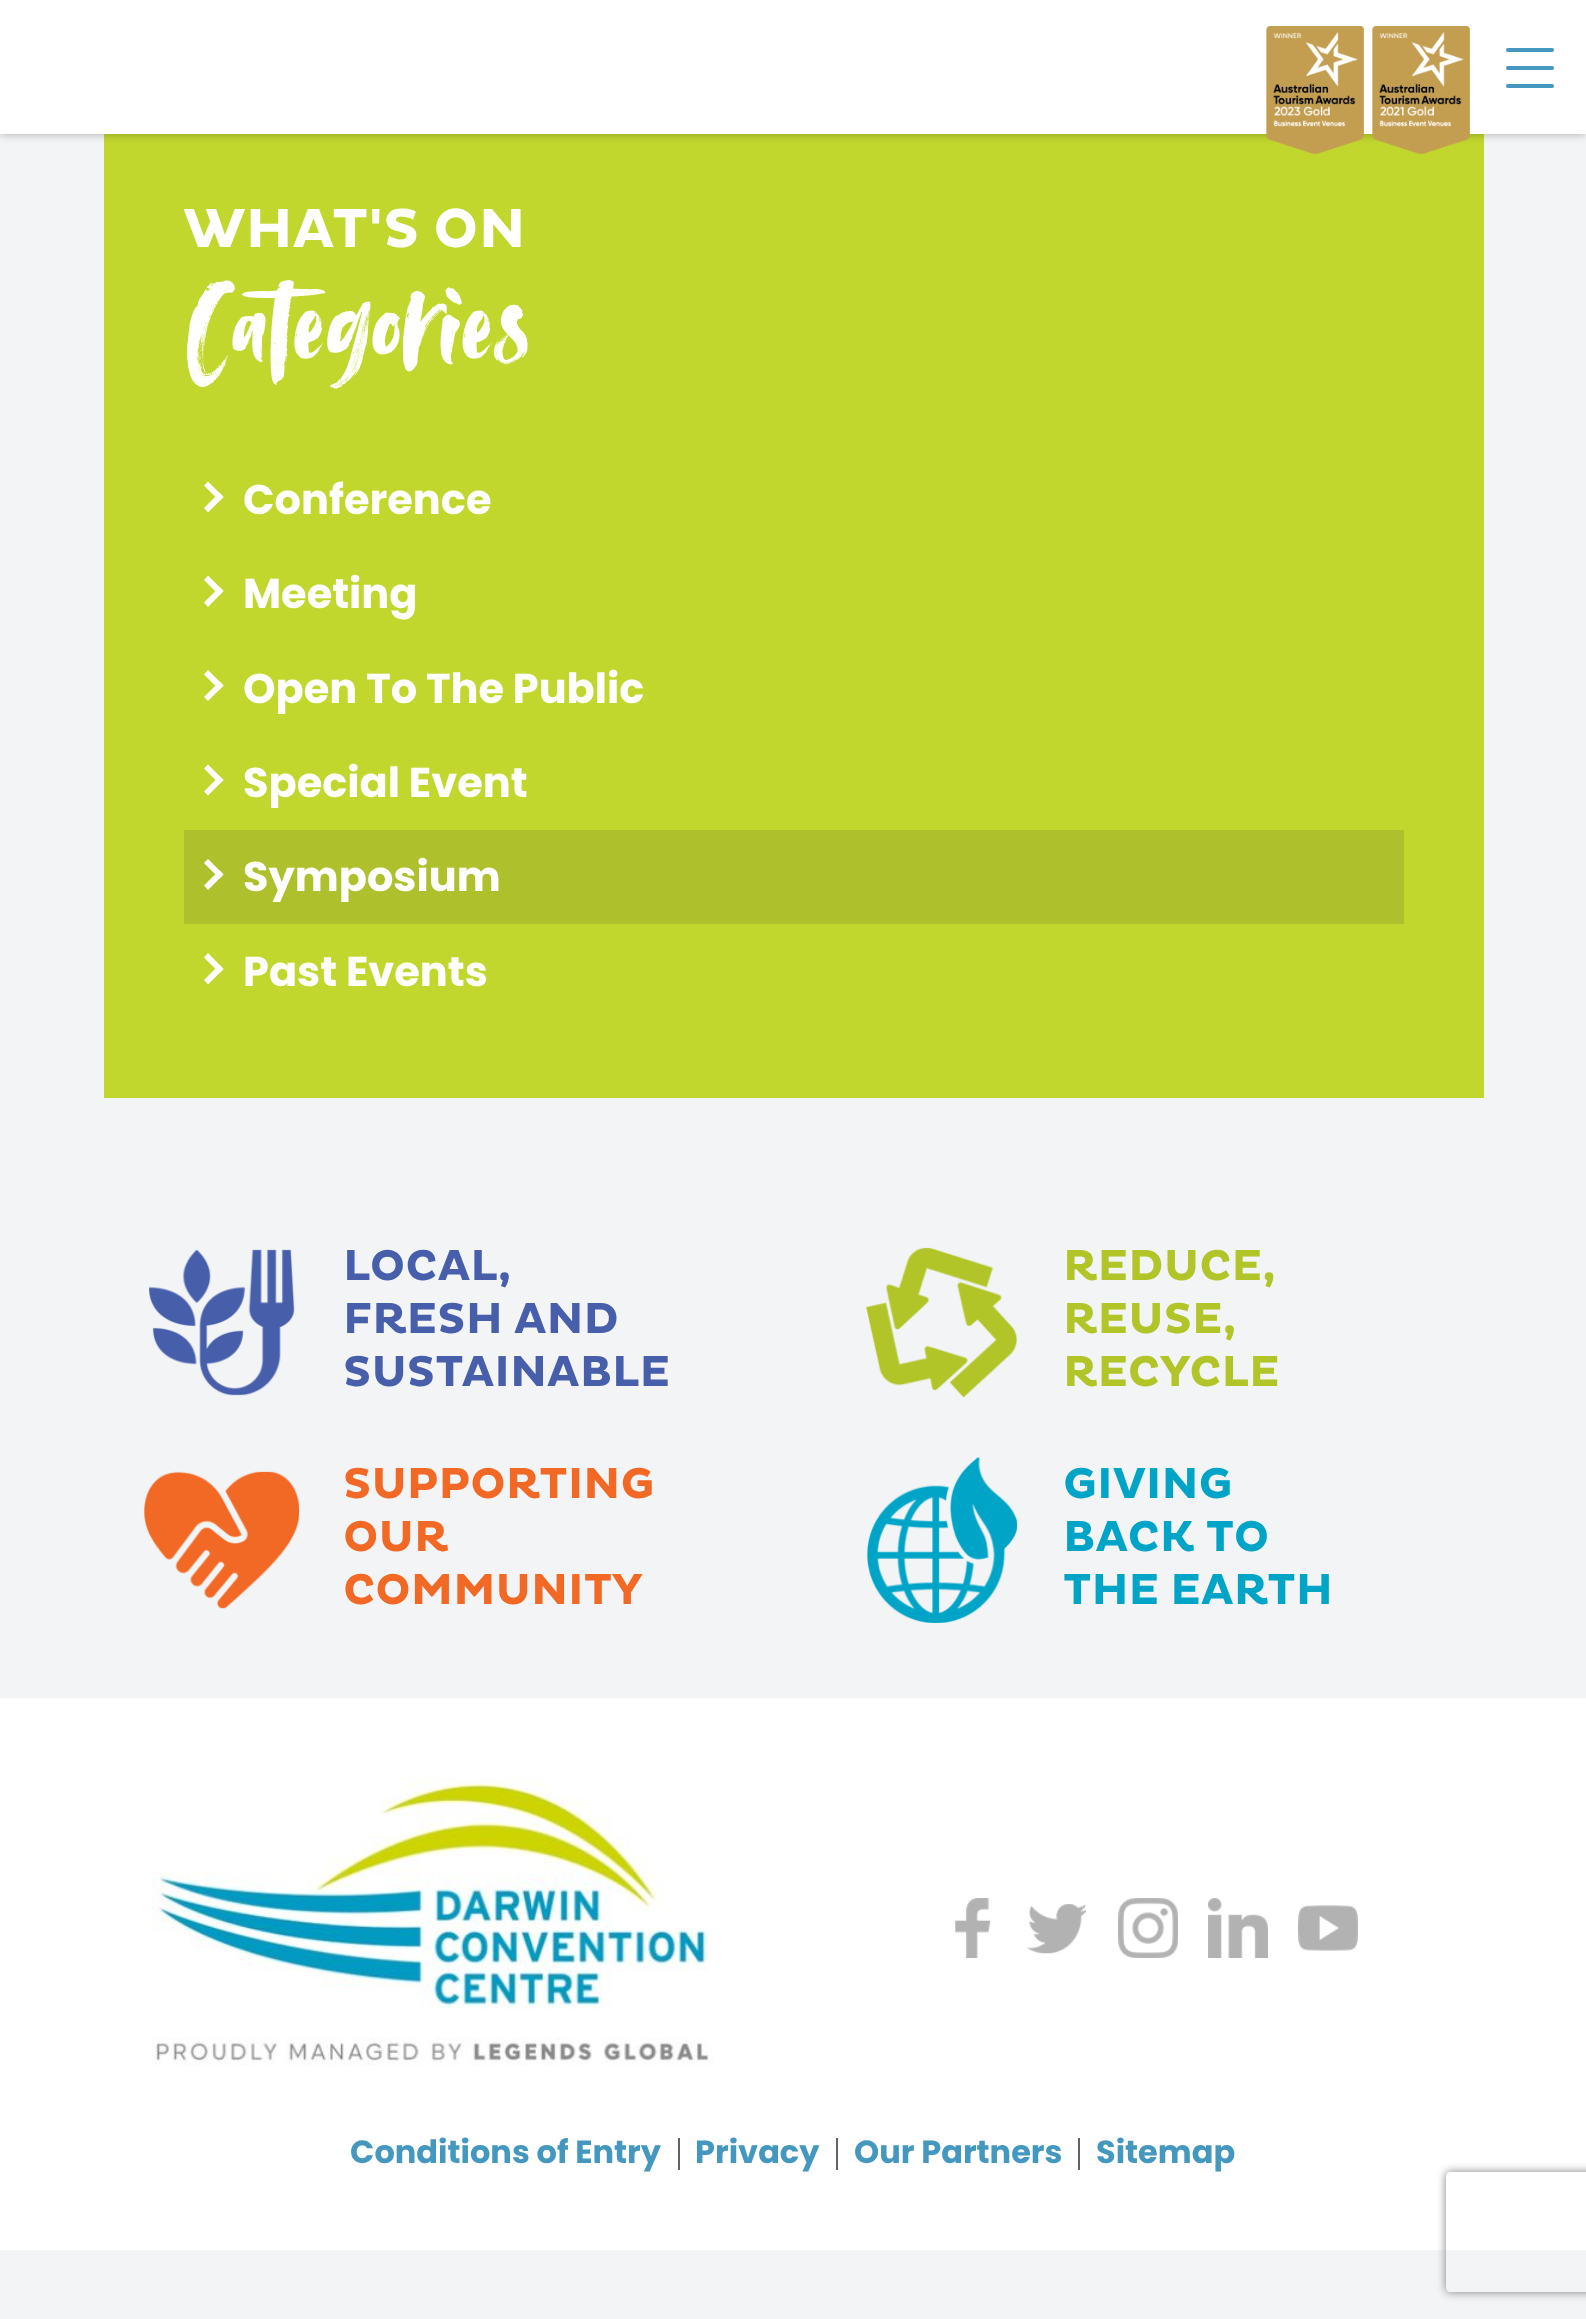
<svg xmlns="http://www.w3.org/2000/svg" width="1586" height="2319">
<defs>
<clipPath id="clip1"><path d="M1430 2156h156v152h-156zm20 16h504c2 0 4 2 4 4v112c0 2-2 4-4 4h-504c-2 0-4-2-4-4v-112c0-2 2-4 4-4z" clip-rule="evenodd"/></clipPath>
</defs>
<rect width="100%" height="100%" fill="#fff"/>
<rect y="134" width="1586" height="1564" fill="#f2f4f5"/>
<rect x="104" y="134" width="1380" height="964" fill="#c1d72e"/>
<rect width="1586" height="134" fill="#0000004d" filter="blur(5px)"/>
<rect width="1586" height="134" fill="#fff"/>
<image x="1266" y="26" width="98" height="128" href="media/1.png"/>
<image x="1372" y="26" width="98" height="128" href="media/2.png"/>
<rect x="1506" y="48" width="48" height="4" rx="2" fill="#4498bf"/>
<rect x="1506" y="66" width="48" height="4" rx="2" fill="#4498bf"/>
<rect x="1506" y="84" width="48" height="4" rx="2" fill="#4498bf"/>
<text x="183" y="247" style="font-family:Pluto;font-size:56px;font-weight:bold;fill:#fff">WHAT'S ON</text>
<text x="183" y="376" style="font-family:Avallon;font-size:140px;fill:#fff">Categories</text>
<path d="M208 481.5l15.5 15.5l-4 4l-15.5-15.5z" fill="#fff"/>
<path d="M219.5 492.5l4 4.5l-15.5 15.5l-4-4.5z" fill="#fff"/>
<text x="243" y="514" style="font-family:Poppins;font-size:41.5px;font-weight:bold;fill:#fff">Conference</text>
<path d="M208 575.5l15.5 15.5l-4 4.5l-15.5-15.5z" fill="#fff"/>
<path d="M219.5 587l4 4l-15.5 16l-4-4.5z" fill="#fff"/>
<text x="243" y="608" style="font-family:Poppins;font-size:41.5px;font-weight:bold;fill:#fff">Meeting</text>
<path d="M208 670l15.5 15.5l-4 4.5l-15.5-15.5z" fill="#fff"/>
<path d="M219.5 681.5l4 4l-15.5 15.5l-4-4z" fill="#fff"/>
<text x="243" y="703" style="font-family:Poppins;font-size:41.5px;font-weight:bold;fill:#fff">Open To The Public</text>
<path d="M208 764.5l15.5 15.5l-4 4l-15.5-15.5z" fill="#fff"/>
<path d="M219.5 776l4 4l-15.5 15.5l-4-4z" fill="#fff"/>
<text x="243" y="797" style="font-family:Poppins;font-size:41.5px;font-weight:bold;fill:#fff">Special Event</text>
<rect x="184" y="830" width="1220" height="94" fill="#aec12c"/>
<path d="M208 859l15.5 15.5l-4 4l-15.5-15.5z" fill="#fff"/>
<path d="M219.5 870l4 4.5l-15.5 15.5l-4-4.5z" fill="#fff"/>
<text x="243" y="891" style="font-family:Poppins;font-size:41.5px;font-weight:bold;fill:#fff">Symposium</text>
<path d="M208 953l15.5 16l-4 4l-15.5-15.5z" fill="#fff"/>
<path d="M219.5 964.5l4 4.5l-15.5 15.5l-4-4.5z" fill="#fff"/>
<text x="243" y="986" style="font-family:Poppins;font-size:41.5px;font-weight:bold;fill:#fff">Past Events</text>
<image x="149" y="1249" width="146" height="147" href="media/3.png"/>
<text x="343" y="1280" style="font-family:Pluto;font-size:44px;font-weight:bold;fill:#475eab">LOCAL,</text>
<text x="343" y="1333" style="font-family:Pluto;font-size:44px;font-weight:bold;fill:#475eab">FRESH AND</text>
<text x="343" y="1386" style="font-family:Pluto;font-size:44px;font-weight:bold;fill:#475eab">SUSTAINABLE</text>
<image x="866" y="1247" width="152" height="151" href="media/4.png"/>
<text x="1063" y="1280" style="font-family:Pluto;font-size:44px;font-weight:bold;fill:#b1c528">REDUCE,</text>
<text x="1063" y="1333" style="font-family:Pluto;font-size:44px;font-weight:bold;fill:#b1c528">REUSE,</text>
<text x="1063" y="1386" style="font-family:Pluto;font-size:44px;font-weight:bold;fill:#b1c528">RECYCLE</text>
<image x="144" y="1471" width="156" height="138" href="media/5.png"/>
<text x="343" y="1498" style="font-family:Pluto;font-size:44px;font-weight:bold;fill:#f26925">SUPPORTING</text>
<text x="343" y="1551" style="font-family:Pluto;font-size:44px;font-weight:bold;fill:#f26925">OUR</text>
<text x="343" y="1604" style="font-family:Pluto;font-size:44px;font-weight:bold;fill:#f26925">COMMUNITY</text>
<image x="867" y="1457" width="151" height="166" href="media/6.png"/>
<text x="1063" y="1498" style="font-family:Pluto;font-size:44px;font-weight:bold;fill:#00a4c7">GIVING</text>
<text x="1063" y="1551" style="font-family:Pluto;font-size:44px;font-weight:bold;fill:#00a4c7">BACK TO</text>
<text x="1063" y="1604" style="font-family:Pluto;font-size:44px;font-weight:bold;fill:#00a4c7">THE EARTH</text>
<image x="152" y="1778" width="562" height="288" href="media/7.png"/>
<image x="955" y="1898" width="36" height="60" href="media/8.png"/>
<image x="1027" y="1904" width="59" height="50" href="media/9.png"/>
<image x="1118" y="1898" width="60" height="60" href="media/10.png"/>
<image x="1208" y="1898" width="60" height="60" href="media/11.png"/>
<image x="1298" y="1905" width="60" height="46" href="media/12.png"/>
<text x="350" y="2163" style="font-family:Poppins;font-size:32px;font-weight:bold;fill:#4498bf">Conditions of Entry</text>
<rect x="678" y="2138" width="2" height="32" fill="#606367"/>
<text x="695" y="2163" style="font-family:Poppins;font-size:32px;font-weight:bold;fill:#4498bf">Privacy</text>
<rect x="836" y="2138" width="2" height="32" fill="#606367"/>
<text x="854" y="2163" style="font-family:Poppins;font-size:32px;font-weight:bold;fill:#4498bf">Our Partners</text>
<rect x="1078" y="2138" width="2" height="32" fill="#606367"/>
<text x="1096" y="2163" style="font-family:Poppins;font-size:32px;font-weight:bold;fill:#4498bf">Sitemap</text>
<rect y="2250" width="1586" height="69" fill="#f2f4f5"/>
<g clip-path="url(#clip1)">
<rect x="1446" y="2172" width="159" height="120" rx="4" fill="#808080" filter="blur(5px)"/>
</g>
</svg>
